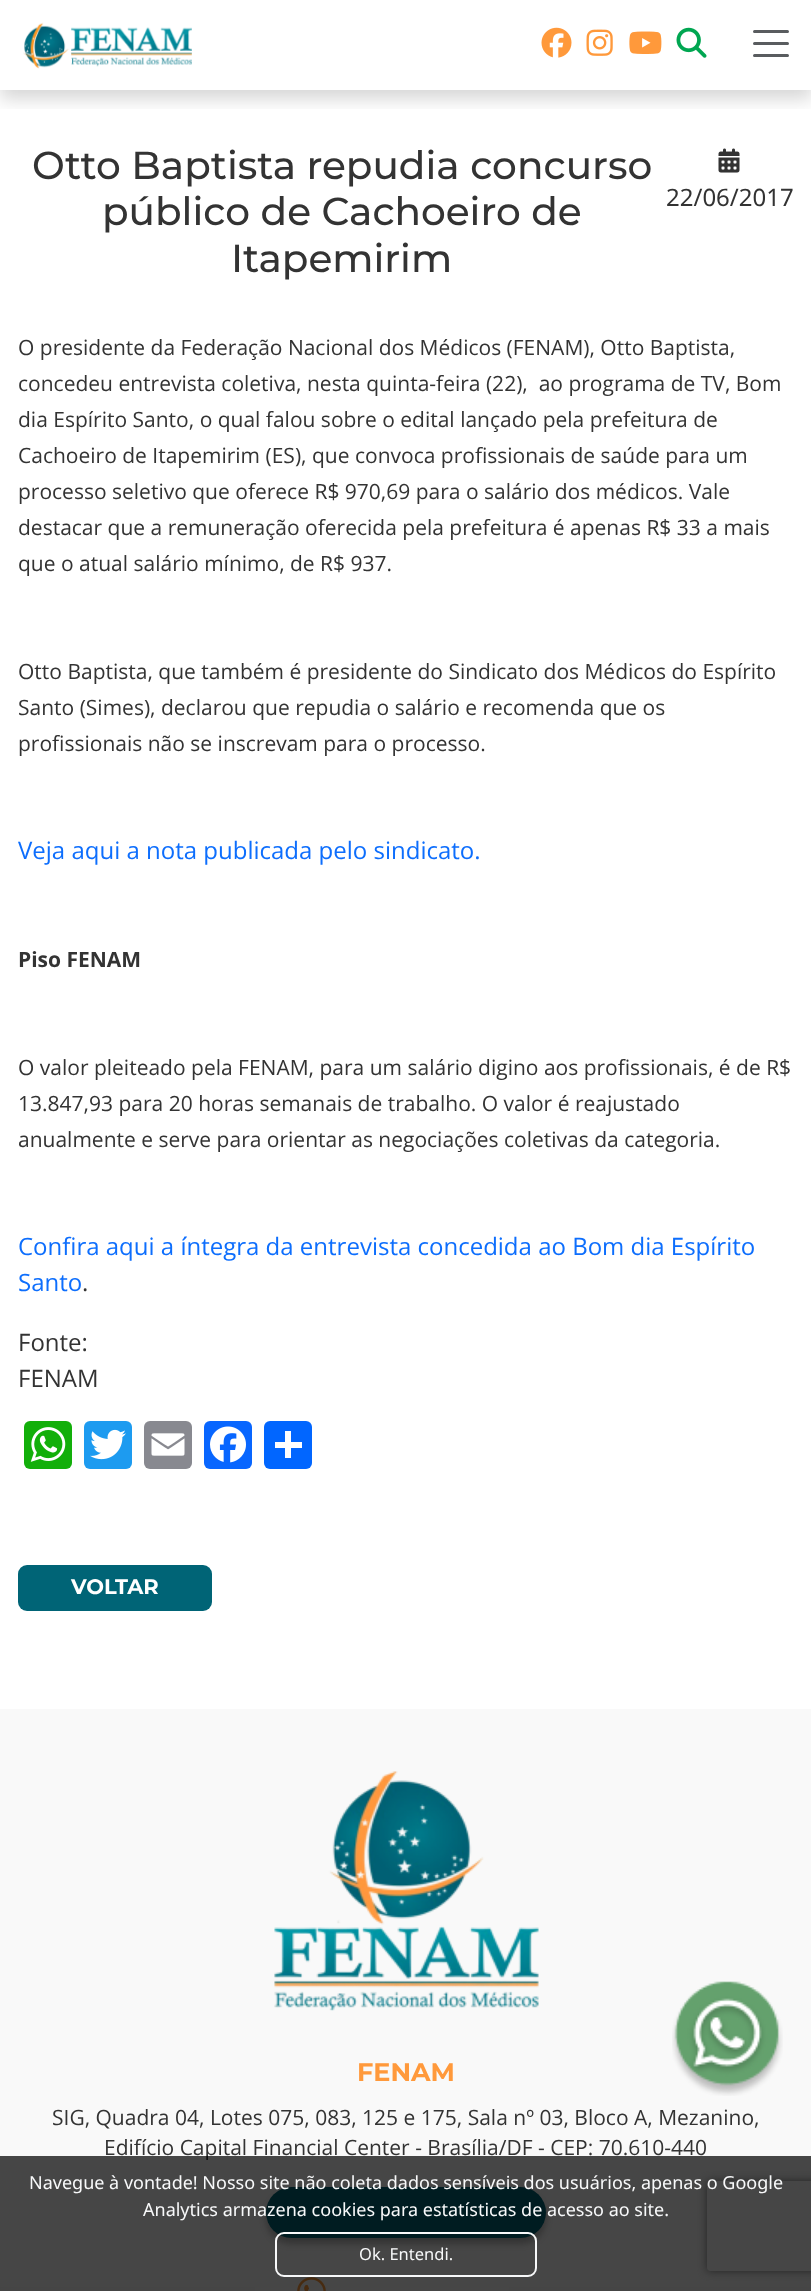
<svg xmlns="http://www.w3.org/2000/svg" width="811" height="2291">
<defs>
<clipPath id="clip1"><rect x="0" y="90" width="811" height="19"/></clipPath>
<clipPath id="clip2"><path d="M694 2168h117v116h-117zm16 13h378c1.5 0 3 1.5 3 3v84c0 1.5-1.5 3-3 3h-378c-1.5 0-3-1.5-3-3v-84c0-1.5 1.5-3 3-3z" clip-rule="evenodd"/></clipPath>
</defs>
<rect width="100%" height="100%" fill="#fff"/>
<g clip-path="url(#clip1)">
<rect y="9" width="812" height="90" fill="#00000029" filter="blur(9px)"/>
</g>
<image x="23" y="22" width="169" height="47" href="media/1.png"/>
<image x="541" y="27" width="31" height="31" href="media/2.png"/>
<image x="586" y="29" width="27" height="27" href="media/3.png"/>
<image x="629" y="31" width="33" height="23" href="media/4.png"/>
<image x="676" y="27" width="31" height="31" href="media/5.png"/>
<path d="M754.5 31.5h33m-33 12h33m-33 12h33" fill="none" stroke="#595c5f" stroke-width="3" stroke-linecap="round"/>
<text x="32" y="179" style="font-family:Montserrat;font-size:39px;font-weight:500;fill:#333">Otto Baptista repudia concurso</text>
<text x="102" y="225" style="font-family:Montserrat;font-size:39px;font-weight:500;fill:#333">público de Cachoeiro de</text>
<text x="231" y="272" style="font-family:Montserrat;font-size:39px;font-weight:500;fill:#333">Itapemirim</text>
<image x="718" y="148" width="22" height="25" href="media/6.png"/>
<text x="666" y="206" style="font-family:Noto Sans;font-size:24px;fill:#333">22/06/2017</text>
<text x="18" y="355" style="font-family:Open Sans;font-size:21px;fill:#333">O presidente da Federação Nacional dos Médicos (FENAM), Otto Baptista,</text>
<text x="18" y="391" style="font-family:Open Sans;font-size:21px;fill:#333" xml:space="preserve">concedeu entrevista coletiva, nesta quinta-feira (22),  ao programa de TV, Bom</text>
<text x="18" y="427" style="font-family:Open Sans;font-size:21px;fill:#333">dia Espírito Santo, o qual falou sobre o edital lançado pela prefeitura de</text>
<text x="18" y="463" style="font-family:Open Sans;font-size:21px;fill:#333">Cachoeiro de Itapemirim (ES), que convoca profissionais de saúde para um</text>
<text x="18" y="499" style="font-family:Open Sans;font-size:21px;fill:#333">processo seletivo que oferece R$ 970,69 para o salário dos médicos. Vale</text>
<text x="18" y="535" style="font-family:Open Sans;font-size:21px;fill:#333">destacar que a remuneração oferecida pela prefeitura é apenas R$ 33 a mais</text>
<text x="18" y="571" style="font-family:Open Sans;font-size:21px;fill:#333">que o atual salário mínimo, de R$ 937.</text>
<text x="18" y="679" style="font-family:Open Sans;font-size:21px;fill:#333">Otto Baptista, que também é presidente do Sindicato dos Médicos do Espírito</text>
<text x="18" y="715" style="font-family:Open Sans;font-size:21px;fill:#333">Santo (Simes), declarou que repudia o salário e recomenda que os</text>
<text x="18" y="751" style="font-family:Open Sans;font-size:21px;fill:#333">profissionais não se inscrevam para o processo.</text>
<text x="18" y="859" style="font-family:Open Sans;font-size:24px;fill:#0d6efd">Veja aqui a nota publicada pelo sindicato.</text>
<text x="18" y="967" style="font-family:Open Sans;font-size:21px;font-weight:bold;fill:#333">Piso FENAM</text>
<text x="18" y="1075" style="font-family:Open Sans;font-size:21px;fill:#333">O valor pleiteado pela FENAM, para um salário digino aos profissionais, é de R$</text>
<text x="18" y="1111" style="font-family:Open Sans;font-size:21px;fill:#333">13.847,93 para 20 horas semanais de trabalho. O valor é reajustado</text>
<text x="18" y="1147" style="font-family:Open Sans;font-size:21px;fill:#333">anualmente e serve para orientar as negociações coletivas da categoria.</text>
<text x="18" y="1255" style="font-family:Open Sans;font-size:24px;fill:#0d6efd">Confira aqui a íntegra da entrevista concedida ao Bom dia Espírito</text>
<text x="18" y="1291" style="font-family:Open Sans;font-size:24px;fill:#0d6efd">Santo</text>
<text x="82" y="1291" style="font-family:Open Sans;font-size:24px;fill:#333">.</text>
<text x="18" y="1351" style="font-family:Open Sans;font-size:24px;fill:#333">Fonte:</text>
<text x="18" y="1387" style="font-family:Open Sans;font-size:24px;fill:#333">FENAM</text>
<rect x="24" y="1421" width="48" height="48" rx="6" fill="#12af0a"/>
<image x="30" y="1427" width="36" height="35" href="media/7.png"/>
<rect x="84" y="1421" width="48" height="48" rx="6" fill="#1d9bf0"/>
<image x="90" y="1429" width="36" height="31" href="media/8.png"/>
<rect x="144" y="1421" width="48" height="48" rx="6" fill="#888990"/>
<image x="151" y="1433" width="34" height="23" href="media/9.png"/>
<rect x="204" y="1421" width="48" height="48" rx="6" fill="#0866ff"/>
<image x="210" y="1426" width="36" height="37" href="media/10.png"/>
<rect x="264" y="1421" width="48" height="48" rx="6" fill="#0166ff"/>
<rect x="285" y="1431" width="6" height="27" fill="#fff"/>
<rect x="275" y="1442" width="27" height="6" fill="#fff"/>
<rect x="18" y="1565" width="194" height="46" rx="9" fill="#006476"/>
<text x="71" y="1594" style="font-family:Montserrat;font-size:21px;font-weight:bold;fill:#fff">VOLTAR</text>
<rect y="1709" width="811" height="582" fill="#f9f9f9"/>
<image x="672" y="1981" width="111" height="115" href="media/11.png"/>
<image x="274" y="1771" width="265" height="240" href="media/12.png"/>
<text x="357" y="2081" style="font-family:Montserrat;font-size:25.5px;font-weight:bold;fill:#ff993b">FENAM</text>
<text x="52" y="2125" style="font-family:Open Sans;font-size:21px;fill:#333">SIG, Quadra 04, Lotes 075, 083, 125 e 175, Sala nº 03, Bloco A, Mezanino,</text>
<text x="104" y="2155" style="font-family:Open Sans;font-size:21px;fill:#333">Edifício Capital Financial Center - Brasília/DF - CEP: 70.610-440</text>
<rect x="266" y="2193" width="280" height="51" rx="25.5" fill="#00000040" filter="blur(3px)"/>
<rect x="266" y="2187" width="280" height="51" rx="25.5" fill="#006476"/>
<image x="297" y="2277" width="29" height="14" href="media/13.png"/>
<g clip-path="url(#clip2)">
<rect x="707" y="2181" width="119" height="90" rx="3" fill="#808080" filter="blur(4px)"/>
</g>
<rect y="2156" width="811" height="135" fill="#000000b8"/>
<text x="29" y="2189" style="font-family:Noto Sans;font-size:18px;fill:#f8f9fa">Navegue à vontade! Nosso site não coleta dados sensíveis dos usuários, apenas o Google</text>
<text x="143" y="2216" style="font-family:Noto Sans;font-size:18px;fill:#f8f9fa">Analytics armazena cookies para estatísticas de acesso ao site.</text>
<rect x="276" y="2233" width="260" height="43" rx="8" fill="none" stroke="#f8f9fa" stroke-width="2"/>
<text x="359" y="2260" style="font-family:Noto Sans;font-size:16.5px;fill:#f8f9fa">Ok. Entendi.</text>
</svg>
